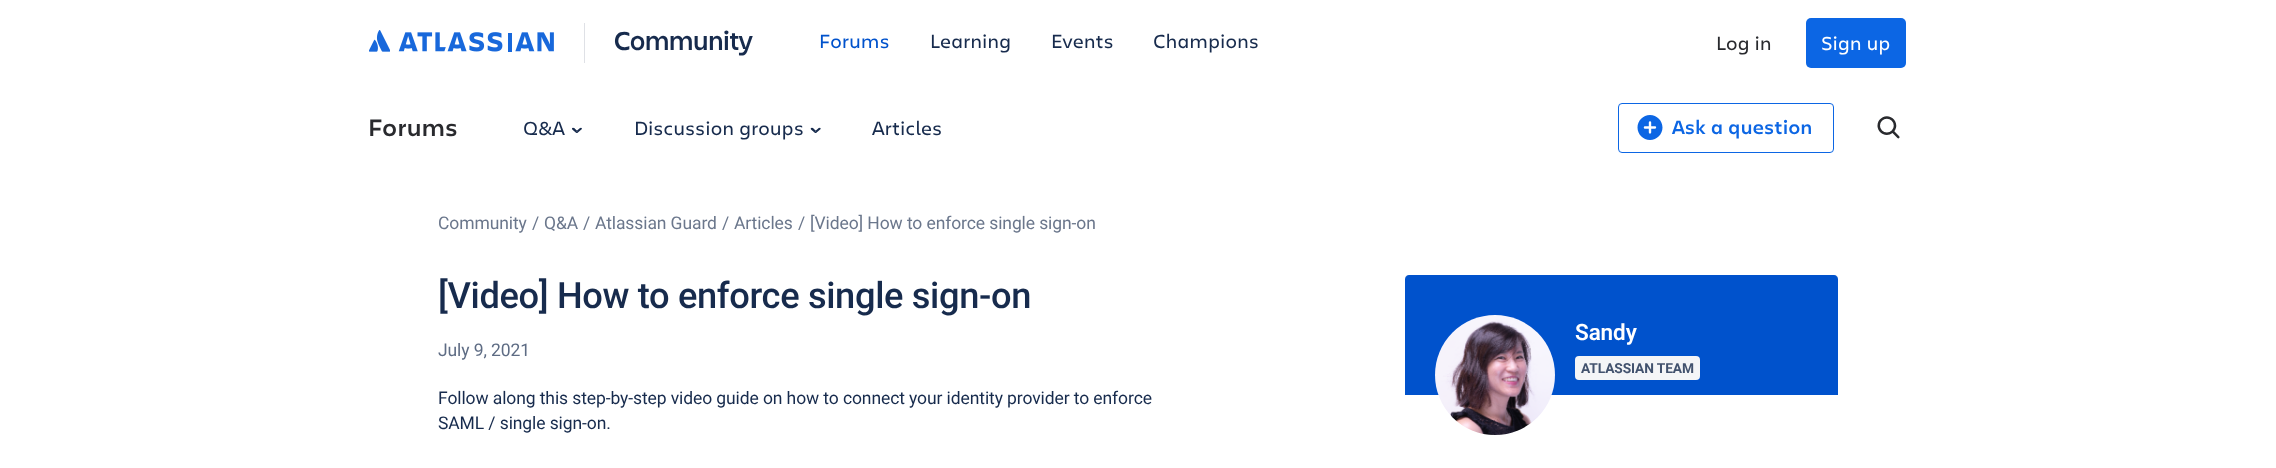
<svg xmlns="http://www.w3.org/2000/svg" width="2276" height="468">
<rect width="100%" height="100%" fill="#fff"/>
<image x="369" y="30" width="185" height="22" href="media/1.png"/>
<rect x="584" y="23" width="1" height="40" fill="#dfe1e6"/>
<text x="614" y="50" style="font-family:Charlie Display;font-size:27.5px;font-weight:600;letter-spacing:-0.1px;fill:#172b4d">Community</text>
<text x="819" y="48" style="font-family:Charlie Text;font-size:20px;letter-spacing:-0.1px;fill:#0052cc">Forums</text>
<text x="930" y="48" style="font-family:Charlie Text;font-size:20px;letter-spacing:-0.1px;fill:#172b4d">Learning</text>
<text x="1051" y="48" style="font-family:Charlie Text;font-size:20px;letter-spacing:-0.1px;fill:#172b4d">Events</text>
<text x="1153" y="48" style="font-family:Charlie Text;font-size:20px;letter-spacing:-0.1px;fill:#172b4d">Champions</text>
<text x="1716" y="50" style="font-family:Charlie Text;font-size:20px;letter-spacing:-0.1px;fill:#292a2e">Log in</text>
<rect x="1806" y="18" width="100" height="50" rx="5" fill="#0c66e4"/>
<text x="1821" y="50" style="font-family:Charlie Text;font-size:20px;letter-spacing:-0.1px;fill:#fff">Sign up</text>
<text x="368" y="136" style="font-family:Charlie Text;font-size:25px;font-weight:600;fill:#292a2e">Forums</text>
<text x="523" y="135" style="font-family:Charlie Text;font-size:20px;letter-spacing:-0.1px;fill:#172b4d">Q&amp;A</text>
<image x="572" y="127" width="10" height="6" href="media/2.png"/>
<text x="634" y="135" style="font-family:Charlie Text;font-size:20px;letter-spacing:-0.1px;fill:#172b4d">Discussion groups</text>
<image x="810" y="127" width="11" height="6" href="media/3.png"/>
<text x="872" y="135" style="font-family:Charlie Text;font-size:20px;letter-spacing:-0.1px;fill:#172b4d">Articles</text>
<rect x="1618.5" y="103.5" width="215" height="49" rx="3.5" fill="none" stroke="#0c66e4"/>
<image x="1637" y="115" width="26" height="25" href="media/4.png"/>
<text x="1672" y="134" style="font-family:Charlie Text;font-size:20px;font-weight:600;fill:#0c66e4">Ask a question</text>
<image x="1877" y="116" width="23" height="23" href="media/5.png"/>
<text x="438" y="229" style="font-family:Roboto;font-size:17.5px;letter-spacing:-0.1px;fill:#6b778c">Community</text>
<text x="532" y="229" style="font-family:Roboto;font-size:17.5px;letter-spacing:-0.1px;fill:#6b778c">/</text>
<text x="544" y="229" style="font-family:Roboto;font-size:17.5px;letter-spacing:-0.1px;fill:#6b778c">Q&amp;A</text>
<text x="583" y="229" style="font-family:Roboto;font-size:17.5px;letter-spacing:-0.1px;fill:#6b778c">/</text>
<text x="595" y="229" style="font-family:Roboto;font-size:17.5px;letter-spacing:-0.1px;fill:#6b778c">Atlassian Guard</text>
<text x="722" y="229" style="font-family:Roboto;font-size:17.5px;letter-spacing:-0.1px;fill:#6b778c">/</text>
<text x="734" y="229" style="font-family:Roboto;font-size:17.5px;letter-spacing:-0.1px;fill:#6b778c">Articles</text>
<text x="798" y="229" style="font-family:Roboto;font-size:17.5px;letter-spacing:-0.1px;fill:#6b778c">/</text>
<text x="810" y="229" style="font-family:Roboto;font-size:17.5px;letter-spacing:-0.1px;fill:#6b778c">[Video] How to enforce single sign-on</text>
<text x="438" y="308" style="font-family:Roboto;font-size:36.25px;font-weight:500;letter-spacing:-0.35px;fill:#172b4d">[Video] How to enforce single sign-on</text>
<text x="438" y="356" style="font-family:Roboto;font-size:17.5px;letter-spacing:-0.1px;fill:#5e6c84">July 9, 2021</text>
<text x="438" y="404" style="font-family:Roboto;font-size:17.5px;letter-spacing:-0.1px;fill:#172b4d">Follow along this step-by-step video guide on how to connect your identity provider to enforce</text>
<text x="438" y="429" style="font-family:Roboto;font-size:17.5px;letter-spacing:-0.1px;fill:#172b4d">SAML / single sign-on.</text>
<rect x="1405" y="275" width="433" height="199" rx="4" fill="#091e424f" filter="blur(0.5px)"/>
<rect x="1405" y="276" width="433" height="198" rx="4" fill="#091e4240" filter="blur(0.5px)"/>
<rect x="1405" y="275" width="433" height="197" rx="4" fill="#fff"/>
<path d="M1409 275h425c2 0 4 2 4 4v116h-433v-116c0-2 2-4 4-4z" fill="#0052cc"/>
<image x="1435" y="315" width="120" height="120" href="media/6.png"/>
<text x="1575" y="340" style="font-family:Roboto;font-size:22.5px;font-weight:600;letter-spacing:-0.1px;fill:#fff">Sandy</text>
<rect x="1575" y="356" width="125" height="24" rx="4" fill="#f4f5f7"/>
<text x="1581" y="373" style="font-family:Roboto;font-size:13.75px;font-weight:bold;letter-spacing:-0.1px;fill:#42526e">ATLASSIAN TEAM</text>
</svg>
